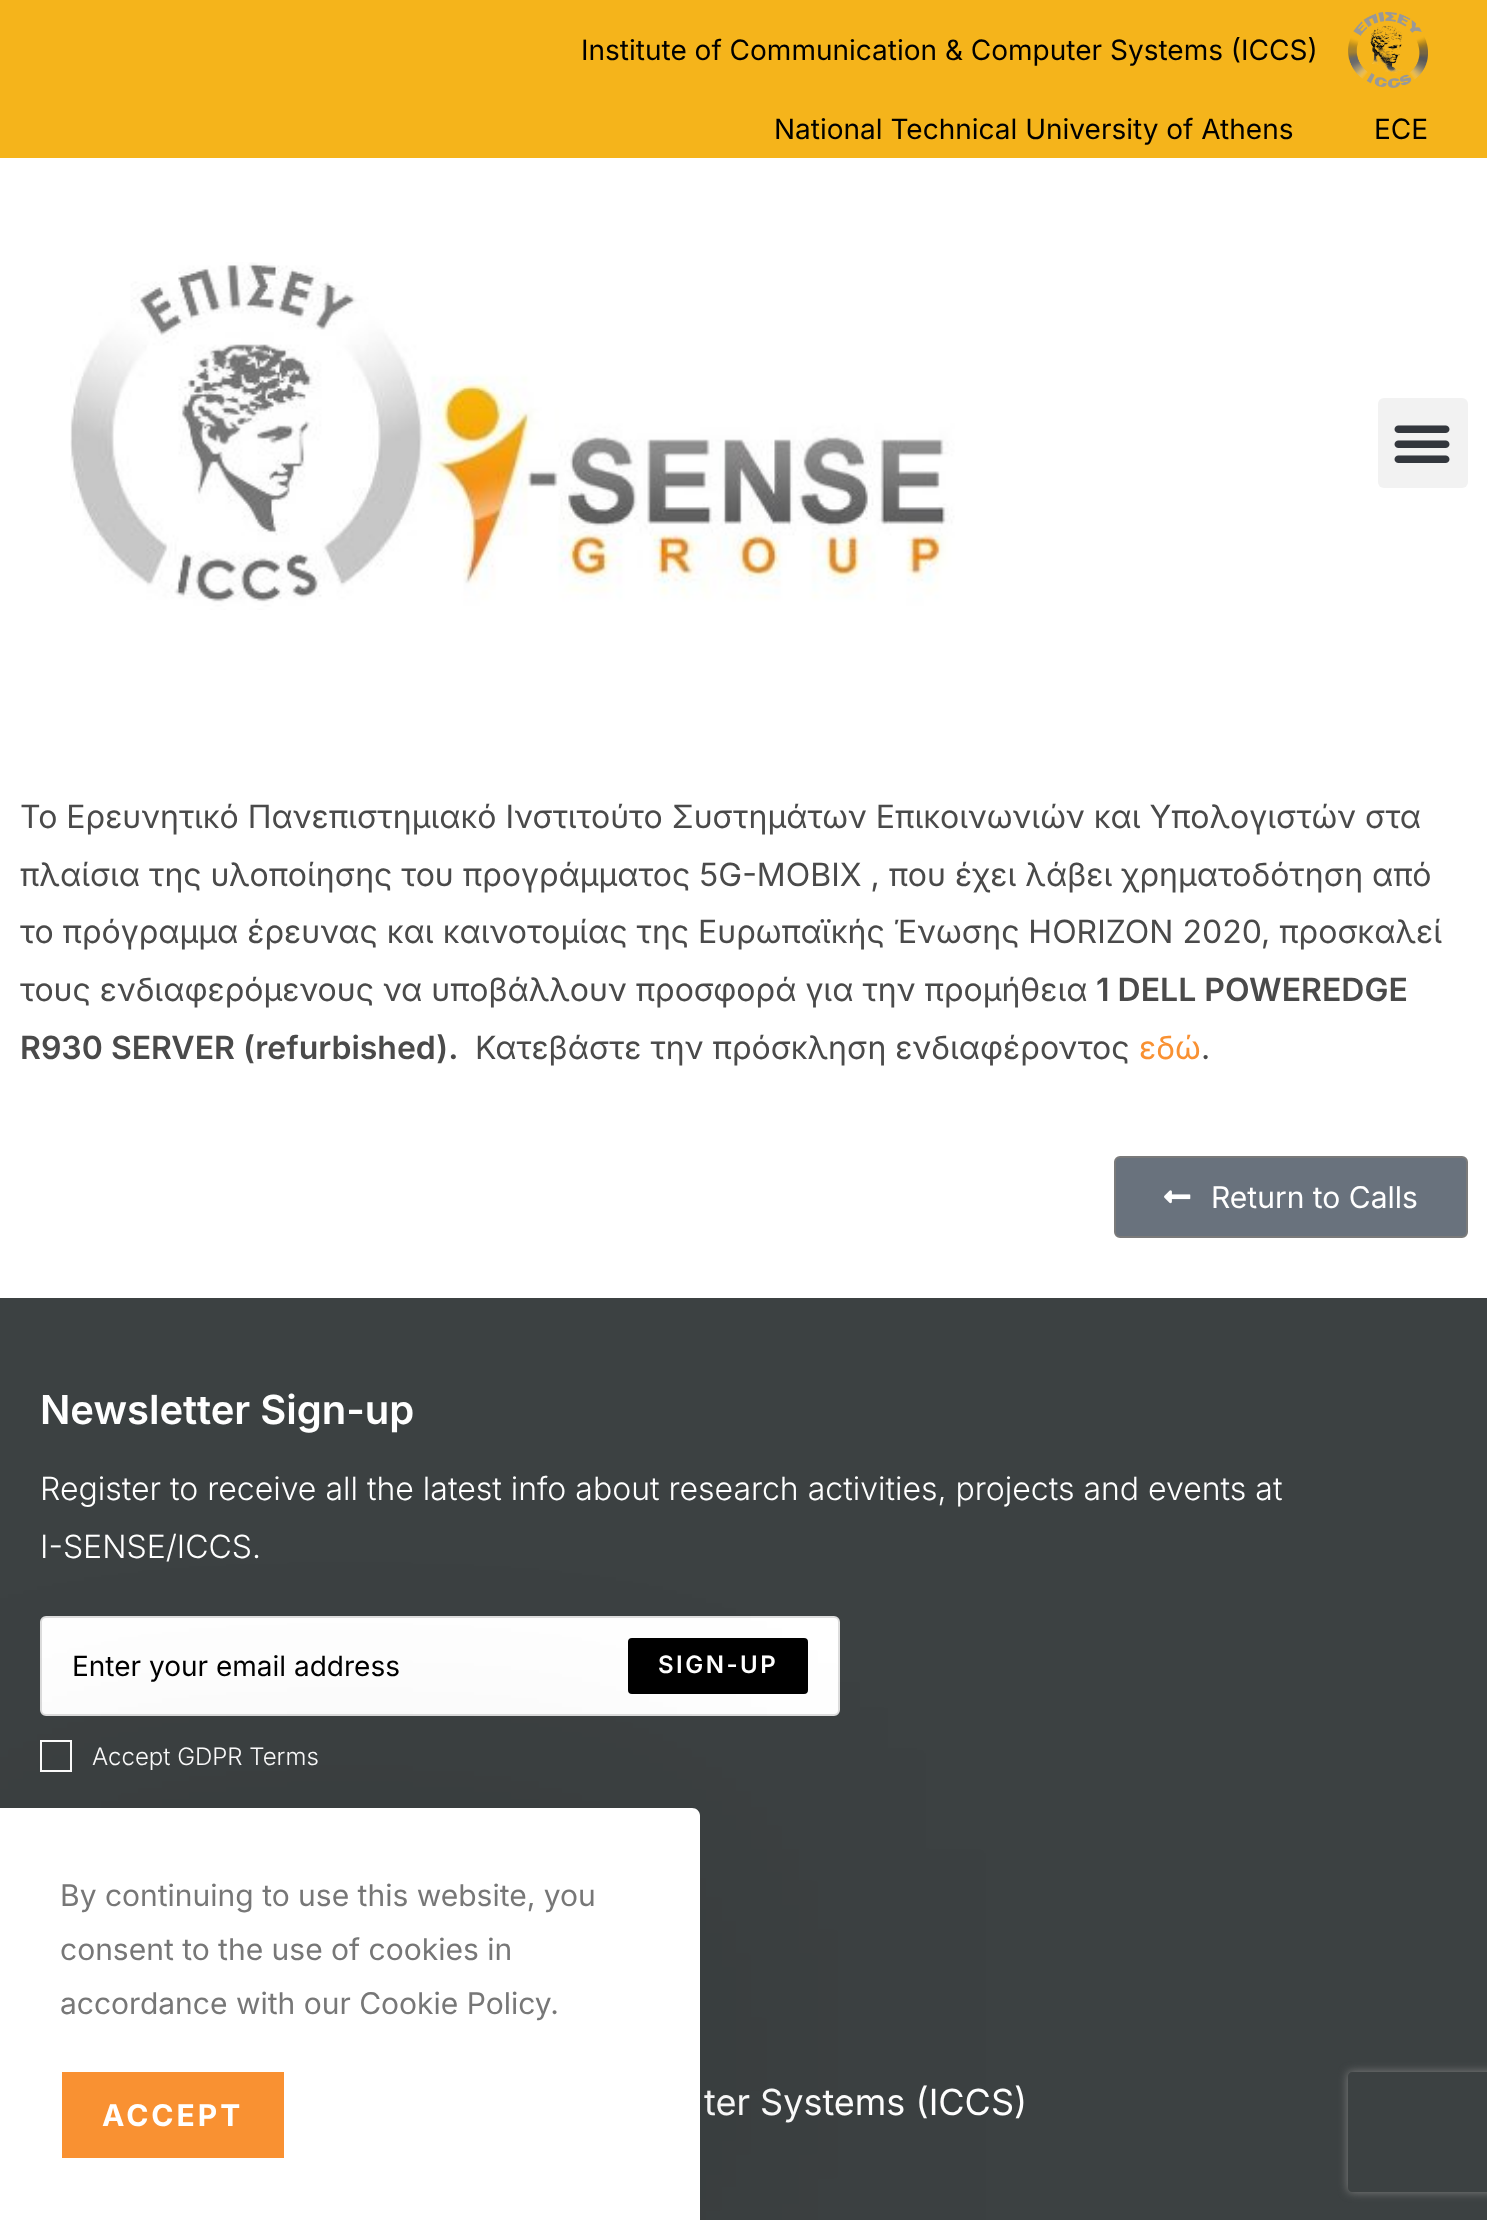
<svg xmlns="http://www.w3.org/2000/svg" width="1487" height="2220">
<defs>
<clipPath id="clip1"><path d="M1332 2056h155v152h-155zm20 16h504c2 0 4 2 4 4v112c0 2-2 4-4 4h-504c-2 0-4-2-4-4v-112c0-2 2-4 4-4z" clip-rule="evenodd"/></clipPath>
</defs>
<rect width="100%" height="100%" fill="#fff"/>
<rect width="1487" height="158" fill="#f5b41b"/>
<text x="581" y="60" style="font-family:Inter;font-size:28px;fill:#000">Institute of Communication &amp; Computer Systems (ICCS)</text>
<image x="1348" y="12" width="80" height="76" href="media/1.png"/>
<text x="774" y="139" style="font-family:Inter;font-size:28px;fill:#000">National Technical University of Athens</text>
<text x="1374" y="139" style="font-family:Inter;font-size:28px;fill:#000">ECE</text>
<image x="70" y="262" width="885" height="348" href="media/2.png"/>
<rect x="1378" y="398" width="90" height="90" rx="6" fill="#f2f2f2"/>
<image x="1394" y="425" width="56" height="38" href="media/3.png"/>
<text x="20" y="828" style="font-family:Inter;font-size:32px;fill:#4a4a4a">To Ερευνητικό Πανεπιστημιακό Ινστιτούτο Συστημάτων Επικοινωνιών και Υπολογιστών στα</text>
<text x="20" y="886" style="font-family:Inter;font-size:32px;fill:#4a4a4a">πλαίσια της υλοποίησης του προγράμματος 5G-MOBIX , που έχει λάβει χρηματοδότηση από</text>
<text x="20" y="943" style="font-family:Inter;font-size:32px;fill:#4a4a4a">το πρόγραμμα έρευνας και καινοτομίας της Ευρωπαϊκής Ένωσης HORIZON 2020, προσκαλεί</text>
<text x="20" y="1001" style="font-family:Inter;font-size:32px;fill:#4a4a4a">τους ενδιαφερόμενους να υποβάλλουν προσφορά για την προμήθεια</text>
<text x="1096" y="1001" style="font-family:Inter;font-size:32px;font-weight:600;fill:#4a4a4a">1 DELL POWEREDGE</text>
<text x="20" y="1059" style="font-family:Inter;font-size:32px;font-weight:600;fill:#4a4a4a">R930 SERVER (refurbished).</text>
<text x="475" y="1059" style="font-family:Inter;font-size:32px;fill:#4a4a4a">Κατεβάστε την πρόσκληση ενδιαφέροντος</text>
<text x="1139" y="1059" style="font-family:Inter;font-size:32px;fill:#f99132">εδώ</text>
<text x="1201" y="1059" style="font-family:Inter;font-size:32px;fill:#4a4a4a">.</text>
<rect x="1115" y="1157" width="352" height="80" rx="5" fill="#69727d" stroke="#7a7a7a" stroke-width="2"/>
<image x="1164" y="1190" width="27" height="14" href="media/4.png"/>
<text x="1211" y="1208" style="font-family:Inter;font-size:30px;fill:#fff">Return to Calls</text>
<rect y="1298" width="1487" height="922" fill="#3c4142"/>
<text x="40" y="1424" style="font-family:Inter;font-size:40px;font-weight:600;fill:#fff">Newsletter Sign-up</text>
<text x="40" y="1500" style="font-family:Inter;font-size:32px;font-weight:300;fill:#fff">Register to receive all the latest info about research activities, projects and events at</text>
<text x="40" y="1558" style="font-family:Inter;font-size:32px;font-weight:300;fill:#fff">I-SENSE/ICCS.</text>
<rect x="41" y="1617" width="798" height="98" rx="5" fill="#fff" stroke="#ddd" stroke-width="2"/>
<text x="72" y="1676" style="font-family:Inter;font-size:28px;fill:#000">Enter your email address</text>
<rect x="627" y="1637" width="182" height="58" rx="5" fill="#000" stroke="#fff" stroke-width="2"/>
<text x="658" y="1673" style="font-family:Inter;font-size:24px;font-weight:600;letter-spacing:2.5px;fill:#fff">SIGN-UP</text>
<rect x="41" y="1741" width="30" height="30" fill="none" stroke="#fff" stroke-width="2"/>
<text x="92" y="1765" style="font-family:Inter;font-size:24px;font-weight:300;fill:#fff">Accept GDPR Terms</text>
<text x="704" y="2115" style="font-family:Inter;font-size:36px;fill:#fff">ter Systems (ICCS)</text>
<rect y="1848" width="700" height="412" rx="8" fill="#0000001a" filter="blur(150px)"/>
<path d="M0 1808h692c4.5 0 8 3.5 8 8v404h-700z" fill="#fff"/>
<text x="60" y="1906" style="font-family:Inter;font-size:30px;fill:#777">By continuing to use this website, you</text>
<text x="60" y="1960" style="font-family:Inter;font-size:30px;fill:#777">consent to the use of cookies in</text>
<text x="60" y="2014" style="font-family:Inter;font-size:30px;fill:#777">accordance with our Cookie Policy.</text>
<rect x="62" y="2072" width="222" height="86" fill="#f99132"/>
<text x="102" y="2126" style="font-family:Inter;font-size:30px;font-weight:bold;letter-spacing:3px;fill:#fff">ACCEPT</text>
<g clip-path="url(#clip1)">
<rect x="1348" y="2072" width="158" height="120" rx="4" fill="#808080" filter="blur(5px)"/>
</g>
</svg>
